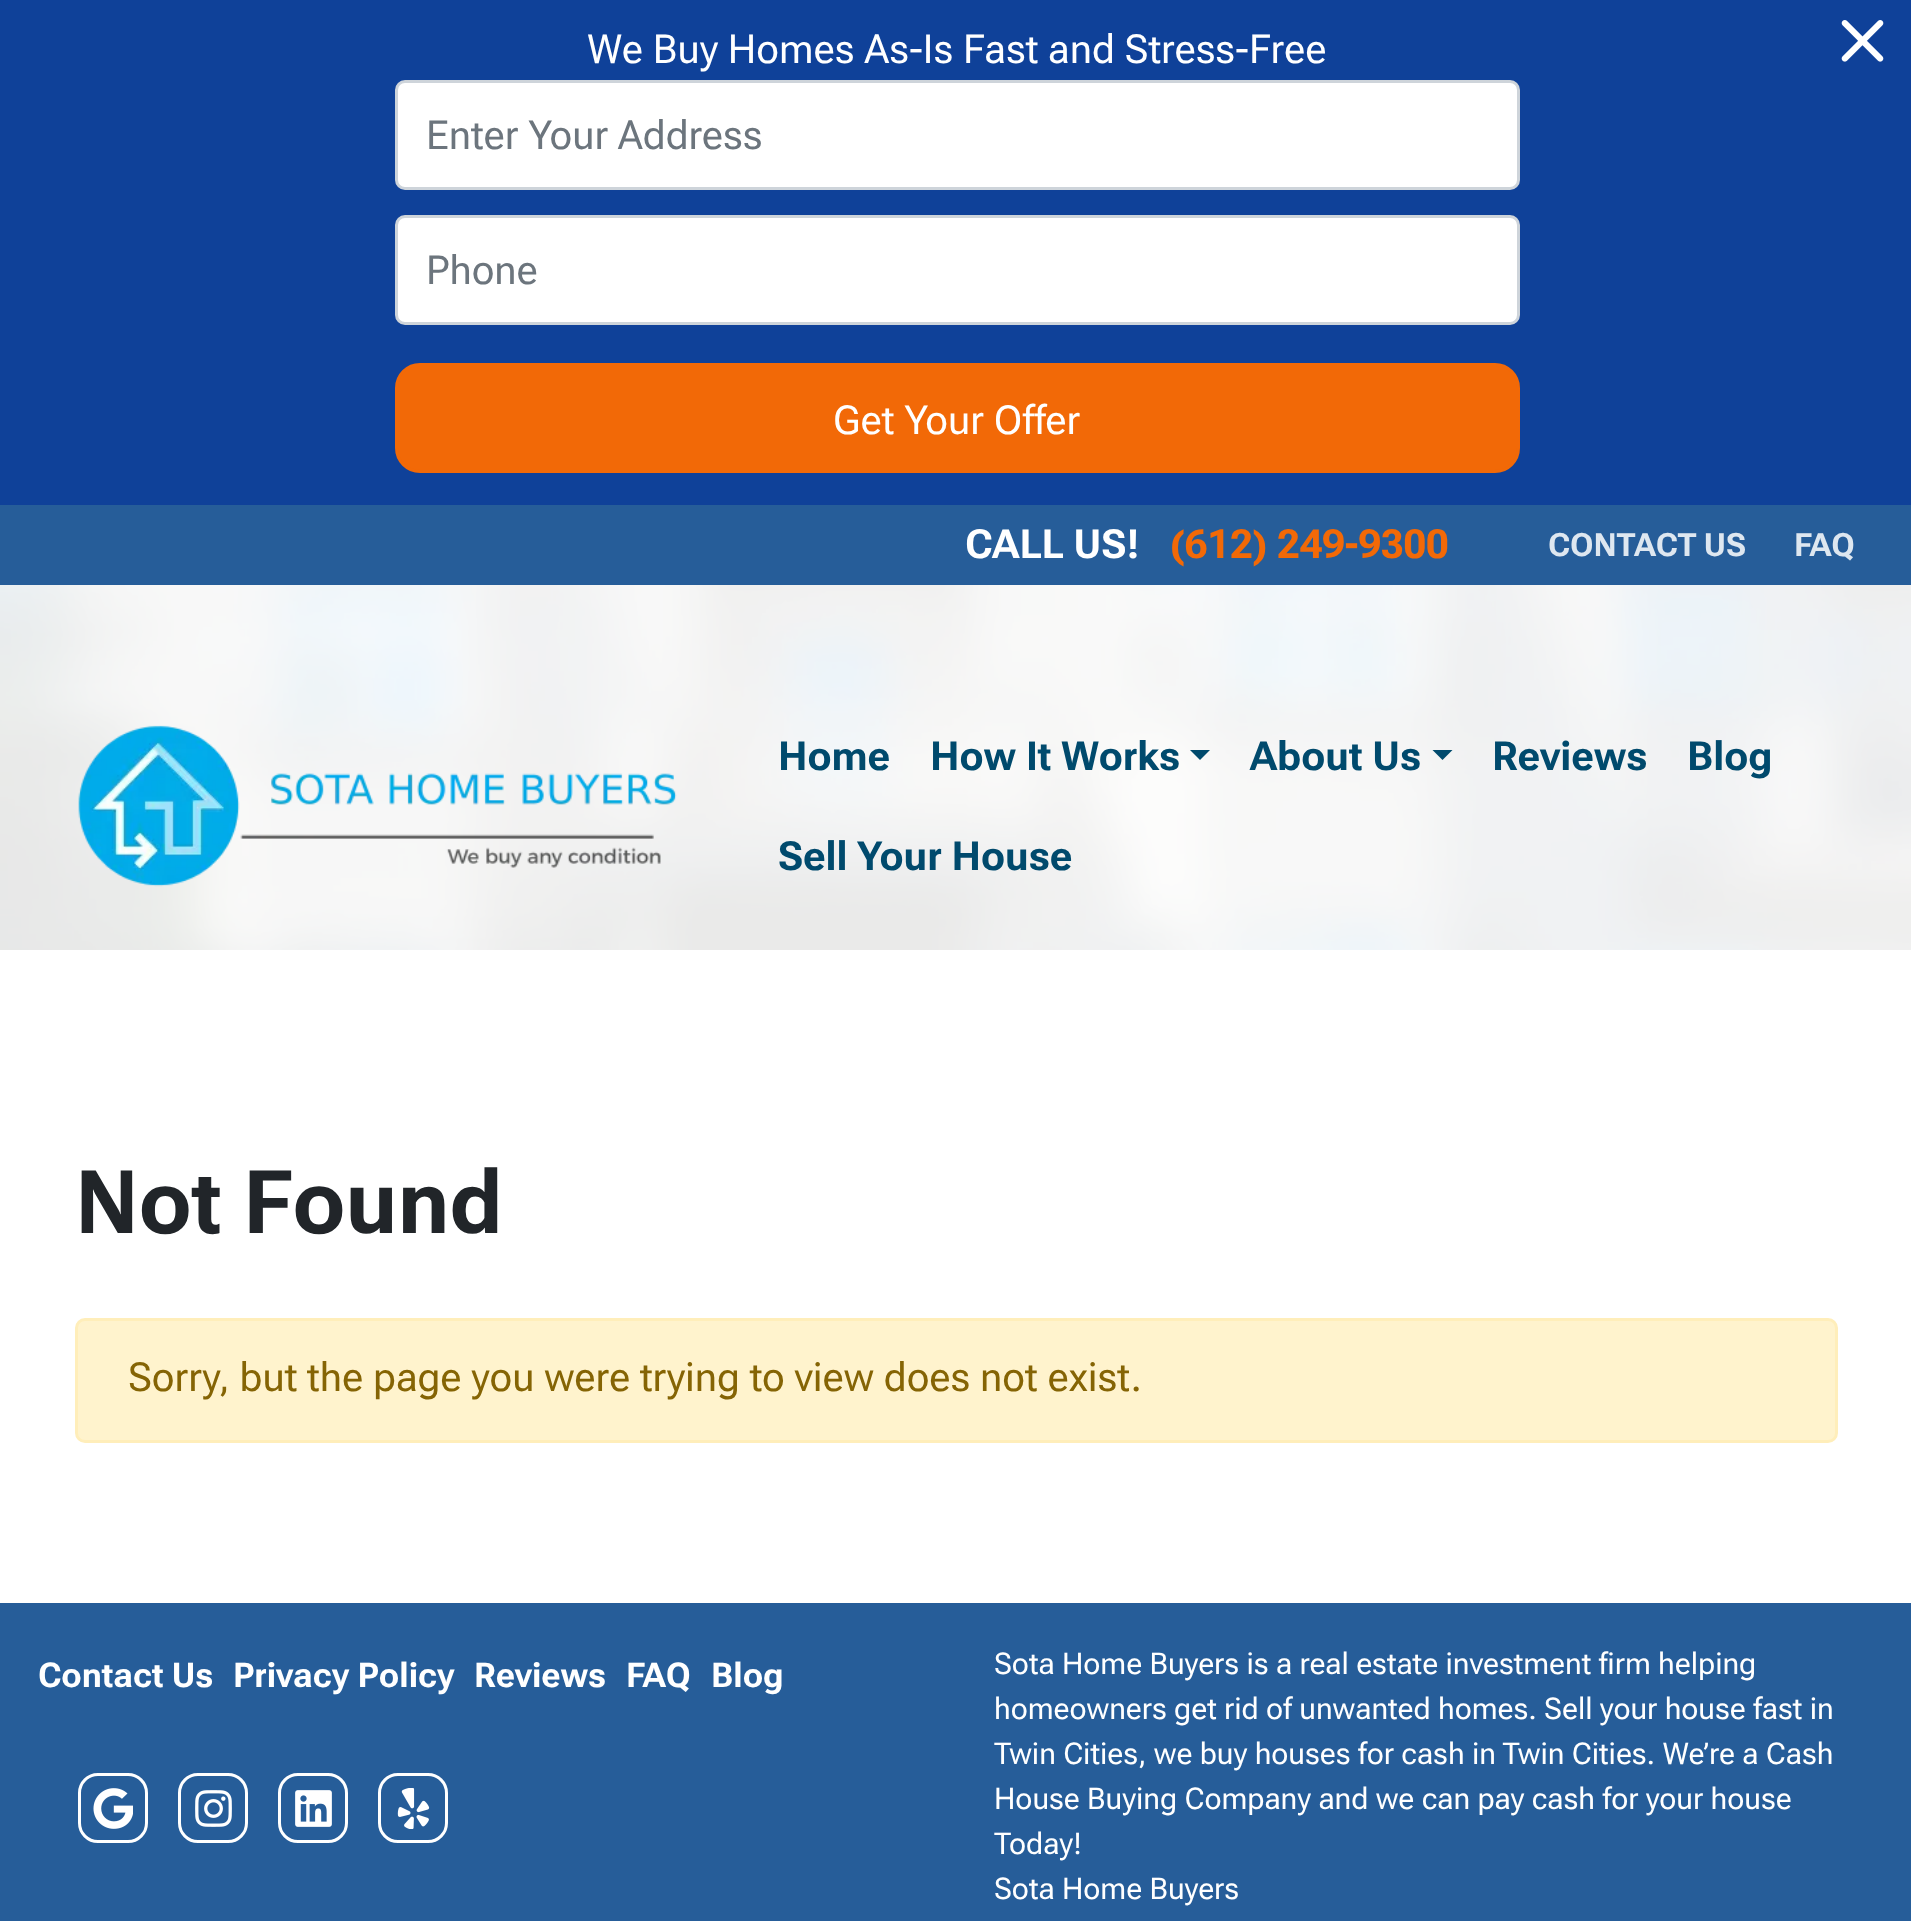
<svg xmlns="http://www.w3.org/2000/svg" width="1911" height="1921">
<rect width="100%" height="100%" fill="#fff"/>
<rect width="1911" height="505" fill="#0f4199"/>
<text x="587" y="63" style="font-family:Roboto Flex;font-size:40px;fill:#fff">We Buy Homes As-Is Fast and Stress-Free</text>
<rect x="396.5" y="81.5" width="1122" height="107" rx="8.5" fill="#fff" stroke="#ced4da" stroke-width="3"/>
<text x="426" y="149" style="font-family:Roboto Flex;font-size:40px;fill:#6c757d">Enter Your Address</text>
<rect x="396.5" y="216.5" width="1122" height="107" rx="8.5" fill="#fff" stroke="#ced4da" stroke-width="3"/>
<text x="426" y="284" style="font-family:Roboto Flex;font-size:40px;fill:#6c757d">Phone</text>
<rect x="396.5" y="364.5" width="1122" height="107" rx="23.5" fill="#f26907" stroke="#f26907" stroke-width="3"/>
<text x="833" y="434" style="font-family:Roboto Flex;font-size:40px;fill:#fff">Get Your Offer</text>
<image x="1841" y="20" width="43" height="42" href="media/1.png"/>
<rect y="505" width="1911" height="80" fill="#265d99"/>
<text x="965" y="558" style="font-family:Roboto Flex;font-size:40px;font-weight:bold;fill:#fff">CALL US!</text>
<text x="1170" y="558" style="font-family:Roboto Flex;font-size:40px;font-weight:bold;fill:#f26907">(612) 249-9300</text>
<text x="1548" y="556" style="font-family:Roboto Flex;font-size:32px;font-weight:bold;fill:#dee7f0">CONTACT US</text>
<text x="1794" y="556" style="font-family:Roboto Flex;font-size:32px;font-weight:bold;fill:#dee7f0">FAQ</text>
<image x="0" y="585" width="1911" height="365" href="media/2.png"/>
<rect y="585" width="1911" height="365" fill="#ffffffe6"/>
<image x="78" y="725" width="599" height="162" href="media/3.png"/>
<text x="778" y="770" style="font-family:Roboto Flex;font-size:40px;font-weight:bold;fill:#004a6d">Home</text>
<text x="930" y="770" style="font-family:Roboto Flex;font-size:40px;font-weight:bold;fill:#004a6d">How It Works</text>
<path d="M1190 750h20l-10 10z" fill="#004a6d"/>
<text x="1250" y="770" style="font-family:Roboto Flex;font-size:40px;font-weight:bold;fill:#004a6d">About Us</text>
<path d="M1432.5 750h20l-10 10z" fill="#004a6d"/>
<text x="1492" y="770" style="font-family:Roboto Flex;font-size:40px;font-weight:bold;fill:#004a6d">Reviews</text>
<text x="1687" y="770" style="font-family:Roboto Flex;font-size:40px;font-weight:bold;fill:#004a6d">Blog</text>
<text x="778" y="870" style="font-family:Roboto Flex;font-size:40px;font-weight:bold;fill:#004a6d">Sell Your House</text>
<text x="75" y="1233" style="font-family:Roboto Flex;font-size:88px;font-weight:bold;fill:#212529">Not Found</text>
<rect x="76.5" y="1319.5" width="1760" height="122" rx="8.5" fill="#fff3cd" stroke="#ffeeba" stroke-width="3"/>
<text x="128" y="1391" style="font-family:Roboto Flex;font-size:40px;fill:#856404">Sorry, but the page you were trying to view does not exist.</text>
<rect y="1603" width="1911" height="318" fill="#265d99"/>
<text x="38" y="1687" style="font-family:Roboto Flex;font-size:34px;font-weight:bold;fill:#fff">Contact Us</text>
<text x="233" y="1687" style="font-family:Roboto Flex;font-size:34px;font-weight:bold;fill:#fff">Privacy Policy</text>
<text x="474" y="1687" style="font-family:Roboto Flex;font-size:34px;font-weight:bold;fill:#fff">Reviews</text>
<text x="626" y="1687" style="font-family:Roboto Flex;font-size:34px;font-weight:bold;fill:#fff">FAQ</text>
<text x="711" y="1687" style="font-family:Roboto Flex;font-size:34px;font-weight:bold;fill:#fff">Blog</text>
<rect x="79.5" y="1774.5" width="67" height="67" rx="18.5" fill="none" stroke="#fff" stroke-width="3"/>
<image x="93" y="1788" width="40" height="41" href="media/4.png"/>
<rect x="179.5" y="1774.5" width="67" height="67" rx="18.5" fill="none" stroke="#fff" stroke-width="3"/>
<image x="195" y="1790" width="37" height="37" href="media/5.png"/>
<rect x="279.5" y="1774.5" width="67" height="67" rx="18.5" fill="none" stroke="#fff" stroke-width="3"/>
<image x="295" y="1790" width="37" height="37" href="media/6.png"/>
<rect x="379.5" y="1774.5" width="67" height="67" rx="18.5" fill="none" stroke="#fff" stroke-width="3"/>
<image x="397" y="1788" width="33" height="41" href="media/7.png"/>
<text x="994" y="1674" style="font-family:Roboto Flex;font-size:30px;fill:#fff">Sota Home Buyers is a real estate investment firm helping</text>
<text x="994" y="1719" style="font-family:Roboto Flex;font-size:30px;fill:#fff">homeowners get rid of unwanted homes. Sell your house fast in</text>
<text x="994" y="1764" style="font-family:Roboto Flex;font-size:30px;fill:#fff">Twin Cities, we buy houses for cash in Twin Cities. We’re a Cash</text>
<text x="994" y="1809" style="font-family:Roboto Flex;font-size:30px;fill:#fff">House Buying Company and we can pay cash for your house</text>
<text x="994" y="1854" style="font-family:Roboto Flex;font-size:30px;fill:#fff">Today!</text>
<text x="994" y="1899" style="font-family:Roboto Flex;font-size:30px;fill:#fff">Sota Home Buyers</text>
</svg>
